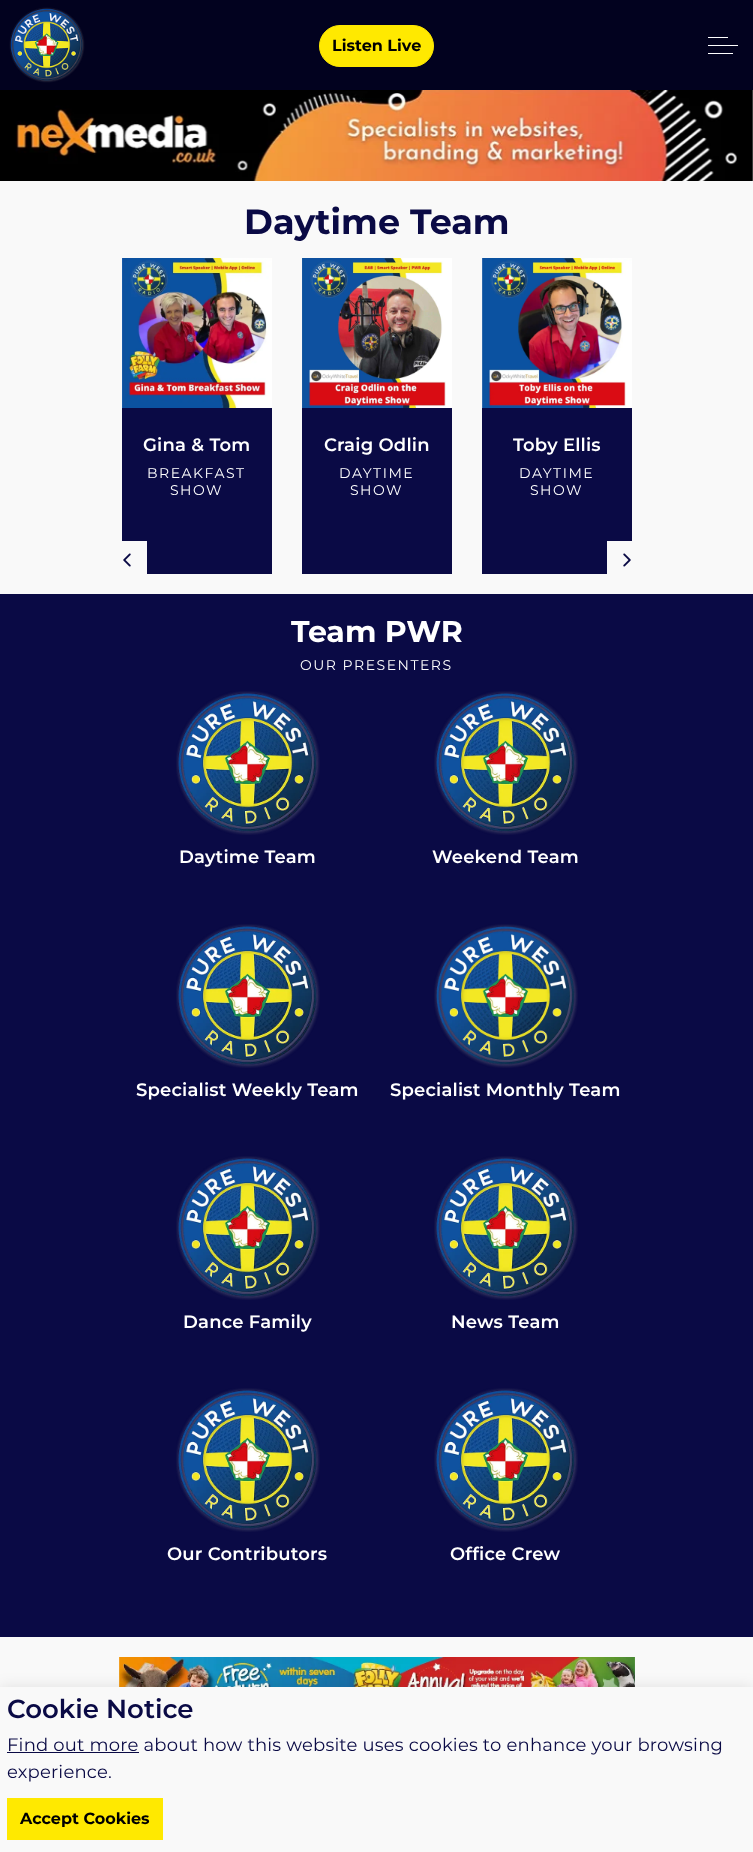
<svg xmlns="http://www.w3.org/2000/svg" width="753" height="1852">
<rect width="100%" height="100%" fill="#fff"/>
<rect width="753" height="90" fill="#02021f"/>
<image x="9" y="7" width="76" height="76" href="media/1.png"/>
<rect x="319.5" y="25.5" width="114" height="41" rx="20.5" fill="#ffe900" stroke="#ffe900"/>
<text x="332" y="51" style="font-family:Montserrat;font-size:16px;font-weight:bold;fill:#000">Listen Live</text>
<rect x="708" y="45" width="30" height="1" fill="#fff"/>
<rect x="708" y="37" width="20" height="1" fill="#fff"/>
<rect x="708" y="53" width="25" height="1" fill="#fff"/>
<image x="0" y="90" width="753" height="91" href="media/2.png"/>
<rect y="181" width="753" height="413" fill="#f9f9f9"/>
<text x="244" y="234" style="font-family:Montserrat;font-size:35px;font-weight:bold;fill:#0a0a45">Daytime Team</text>
<rect x="122" y="408" width="150" height="166" fill="#0a0a45"/>
<image x="122" y="258" width="150" height="150" href="media/3.png"/>
<text x="143" y="451" style="font-family:Montserrat;font-size:18px;font-weight:600;letter-spacing:0.2px;fill:#fff">Gina &amp; Tom</text>
<text x="147" y="478" style="font-family:Montserrat;font-size:14px;letter-spacing:1.5px;fill:#fff">BREAKFAST</text>
<text x="170" y="495" style="font-family:Montserrat;font-size:14px;letter-spacing:1.5px;fill:#fff">SHOW</text>
<rect x="302" y="408" width="150" height="166" fill="#0a0a45"/>
<image x="302" y="258" width="150" height="150" href="media/4.png"/>
<text x="324" y="451" style="font-family:Montserrat;font-size:18px;font-weight:600;letter-spacing:0.2px;fill:#fff">Craig Odlin</text>
<text x="339" y="478" style="font-family:Montserrat;font-size:14px;letter-spacing:1.5px;fill:#fff">DAYTIME</text>
<text x="350" y="495" style="font-family:Montserrat;font-size:14px;letter-spacing:1.5px;fill:#fff">SHOW</text>
<rect x="482" y="408" width="150" height="166" fill="#0a0a45"/>
<image x="482" y="258" width="150" height="150" href="media/5.png"/>
<text x="513" y="451" style="font-family:Montserrat;font-size:18px;font-weight:600;letter-spacing:0.2px;fill:#fff">Toby Ellis</text>
<text x="519" y="478" style="font-family:Montserrat;font-size:14px;letter-spacing:1.5px;fill:#fff">DAYTIME</text>
<text x="530" y="495" style="font-family:Montserrat;font-size:14px;letter-spacing:1.5px;fill:#fff">SHOW</text>
<rect x="122" y="541" width="25" height="33" fill="#f9f9f9"/>
<image x="123" y="553" width="8" height="14" href="media/6.png"/>
<rect x="607" y="541" width="25" height="33" fill="#f9f9f9"/>
<image x="623" y="553" width="8" height="14" href="media/7.png"/>
<rect y="594" width="753" height="1043" fill="#0a0a45"/>
<text x="291" y="642" style="font-family:Montserrat;font-size:30px;font-weight:bold;fill:#fff">Team PWR</text>
<text x="300" y="670" style="font-family:Montserrat;font-size:14px;letter-spacing:1.5px;fill:#fff">OUR PRESENTERS</text>
<image x="176" y="691" width="144" height="144" href="media/8.png"/>
<text x="179" y="863" style="font-family:Montserrat;font-size:18px;font-weight:600;letter-spacing:0.2px;fill:#fff">Daytime Team</text>
<image x="434" y="691" width="144" height="144" href="media/9.png"/>
<text x="432" y="863" style="font-family:Montserrat;font-size:18px;font-weight:600;letter-spacing:0.2px;fill:#fff">Weekend Team</text>
<image x="176" y="924" width="144" height="144" href="media/8.png"/>
<text x="136" y="1096" style="font-family:Montserrat;font-size:18px;font-weight:600;letter-spacing:0.2px;fill:#fff">Specialist Weekly Team</text>
<image x="434" y="924" width="144" height="144" href="media/10.png"/>
<text x="390" y="1096" style="font-family:Montserrat;font-size:18px;font-weight:600;letter-spacing:0.2px;fill:#fff">Specialist Monthly Team</text>
<image x="176" y="1156" width="144" height="144" href="media/8.png"/>
<text x="183" y="1328" style="font-family:Montserrat;font-size:18px;font-weight:600;letter-spacing:0.2px;fill:#fff">Dance Family</text>
<image x="434" y="1156" width="144" height="144" href="media/9.png"/>
<text x="451" y="1328" style="font-family:Montserrat;font-size:18px;font-weight:600;letter-spacing:0.2px;fill:#fff">News Team</text>
<image x="176" y="1388" width="144" height="144" href="media/8.png"/>
<text x="167" y="1560" style="font-family:Montserrat;font-size:18px;font-weight:600;letter-spacing:0.2px;fill:#fff">Our Contributors</text>
<image x="434" y="1388" width="144" height="144" href="media/9.png"/>
<text x="450" y="1560" style="font-family:Montserrat;font-size:18px;font-weight:600;letter-spacing:0.2px;fill:#fff">Office Crew</text>
<rect y="1637" width="753" height="50" fill="#f9f9f9"/>
<image x="119" y="1657" width="516" height="30" href="media/11.png"/>
<rect y="1687" width="753" height="165" fill="#0000001a" filter="blur(7.5px)"/>
<rect y="1687" width="753" height="165" fill="#f9f9f9"/>
<text x="7" y="1718" style="font-family:Montserrat;font-size:26px;font-weight:600;fill:#0a0a45">Cookie Notice</text>
<rect x="7" y="1752" width="132" height="1" fill="#0a0a45"/>
<text x="7" y="1751" style="font-family:Montserrat;font-size:18px;letter-spacing:0.2px;fill:#0a0a45">Find out more about how this website uses cookies to enhance your browsing</text>
<text x="7" y="1778" style="font-family:Montserrat;font-size:18px;letter-spacing:0.2px;fill:#0a0a45">experience.</text>
<rect x="7" y="1798" width="156" height="42" fill="#ffe900"/>
<text x="20" y="1824" style="font-family:Montserrat;font-size:16px;font-weight:bold;fill:#000">Accept Cookies</text>
</svg>
